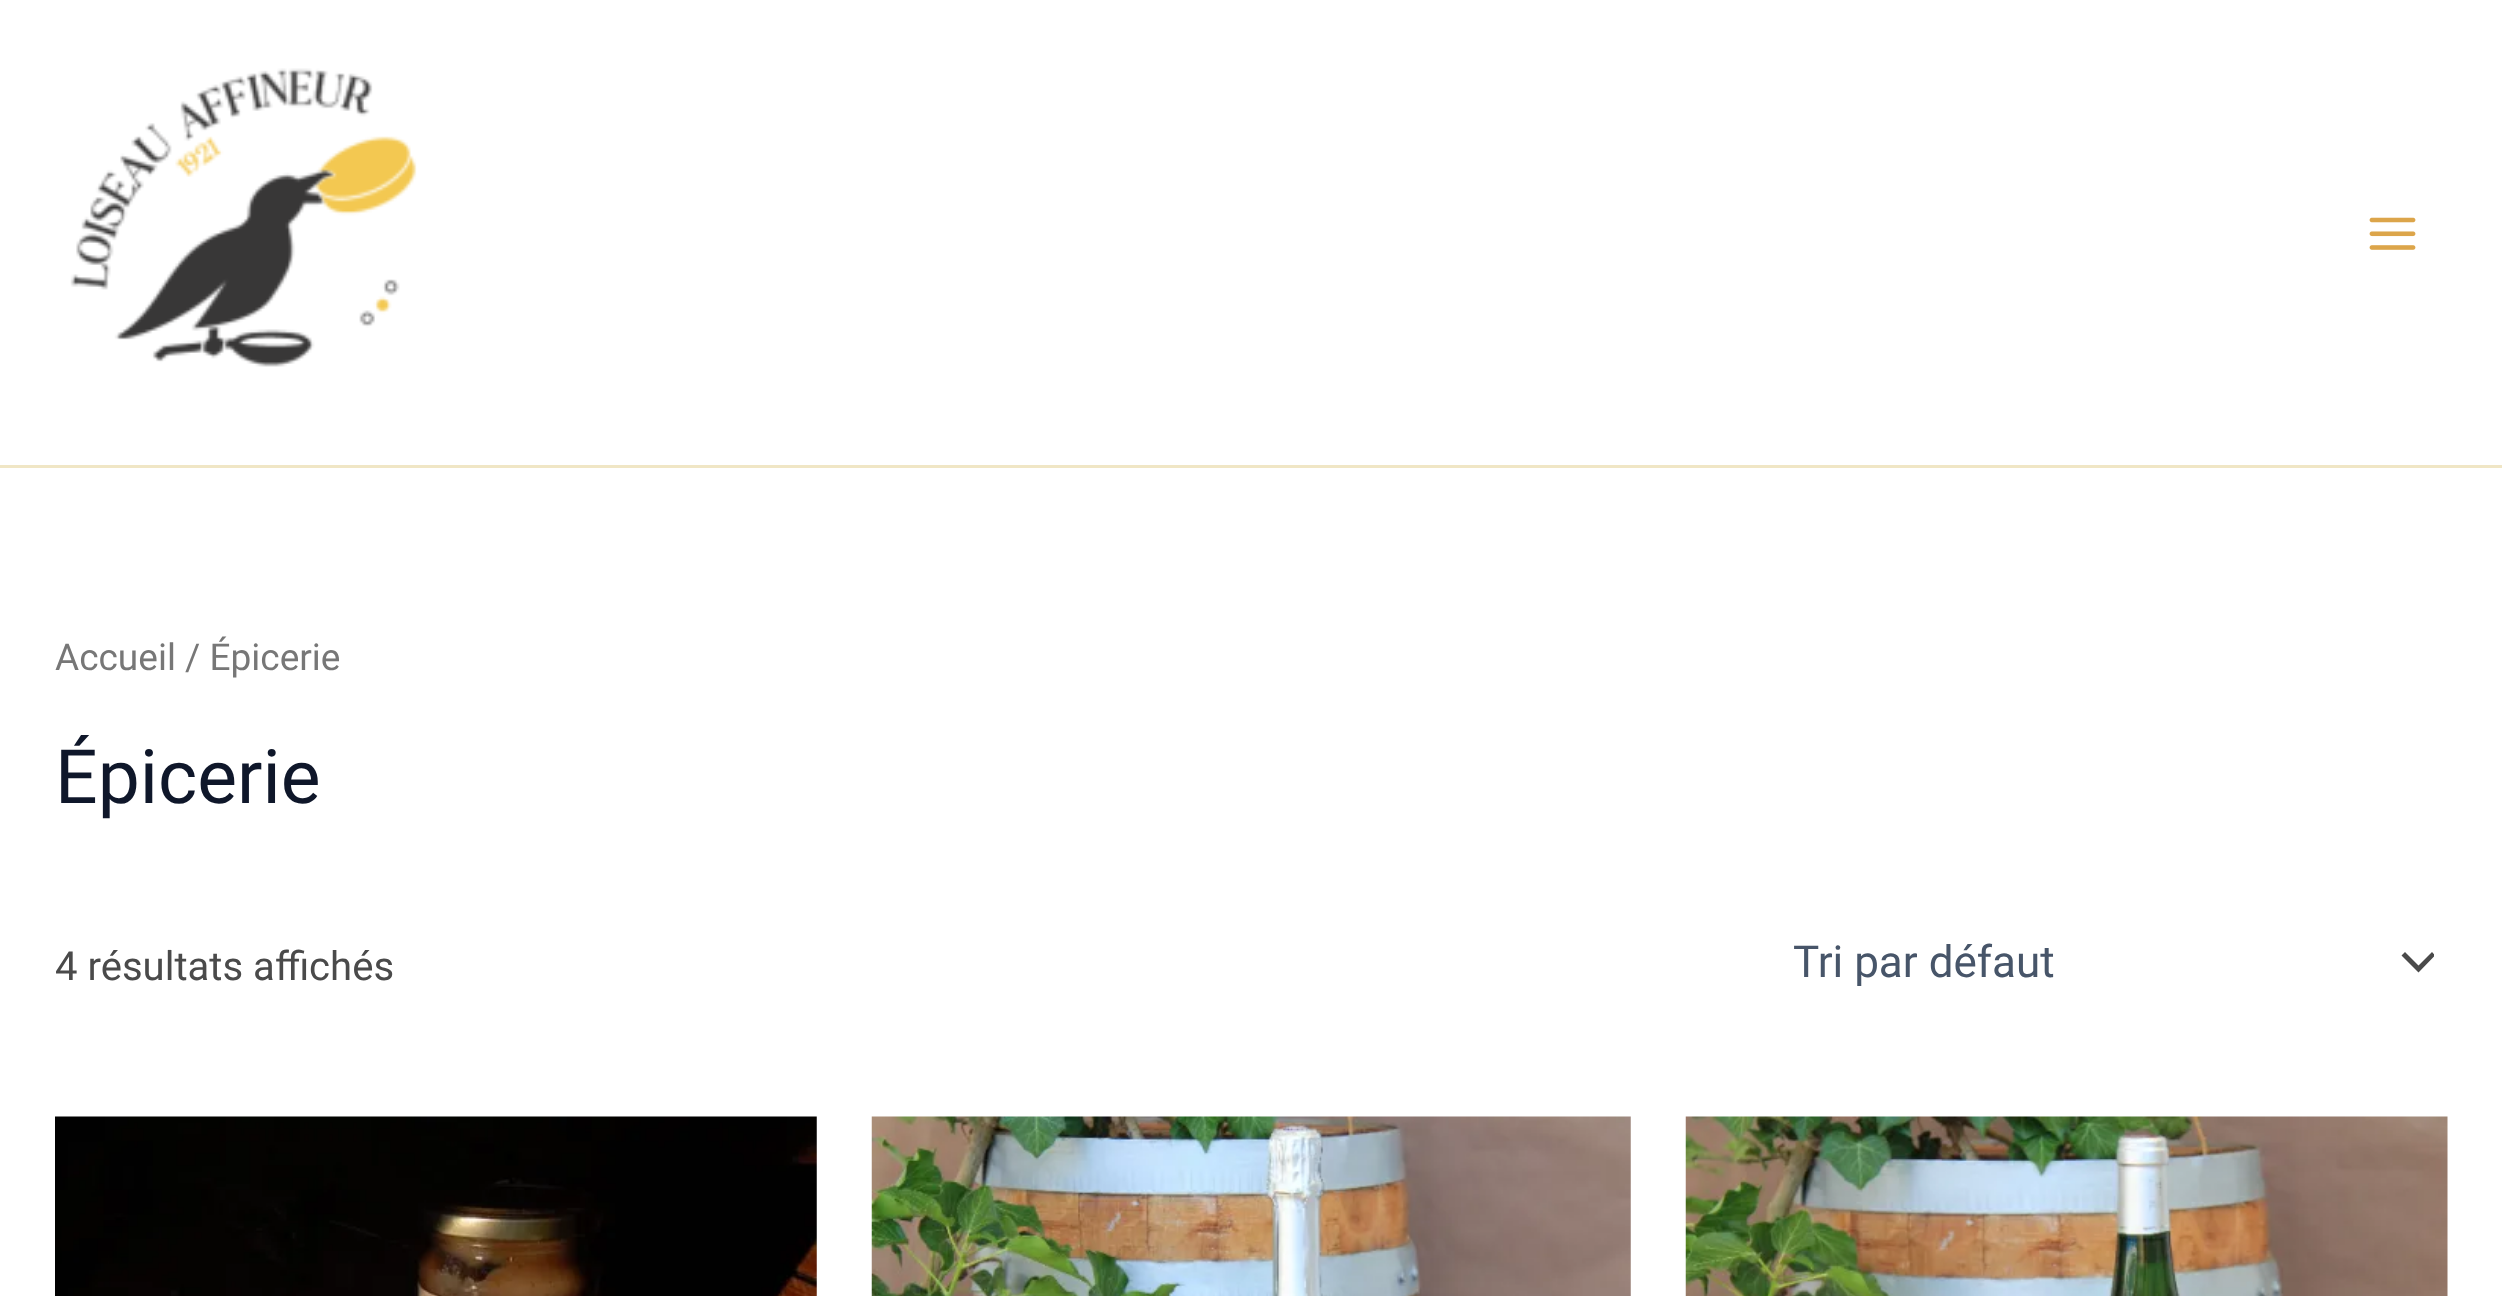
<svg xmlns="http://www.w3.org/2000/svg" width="2502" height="1296">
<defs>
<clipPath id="clip1"><rect x="2401" y="952" width="33" height="22"/></clipPath>
</defs>
<rect width="100%" height="100%" fill="#fff"/>
<rect y="465" width="2502" height="3" fill="#f0e6c5"/>
<image x="70" y="68" width="347" height="299" href="media/1.png"/>
<image x="2369" y="217" width="47" height="33" href="media/2.png"/>
<text x="55" y="670" style="font-family:Roboto;font-size:37px;fill:#777">Accueil / Épicerie</text>
<text x="55" y="803" style="font-family:Roboto;font-size:75px;fill:#0f172a">Épicerie</text>
<text x="55" y="980" style="font-family:Roboto;font-size:40.1px;fill:#4a4a4a">4 résultats affichés</text>
<g clip-path="url(#clip1)">
<path d="M2401.5 955.5l17 17l16.5-17l-3-3.5l-13.5 13.5l-13.5-13.5z" fill="#4a4a4a"/>
</g>
<text x="1793" y="977" style="font-family:Roboto;font-size:44px;fill:#475569">Tri par défaut</text>
<image x="55" y="1116" width="762" height="180" href="media/3.png"/>
<image x="871" y="1116" width="760" height="180" href="media/4.png"/>
<image x="1685" y="1116" width="763" height="180" href="media/5.png"/>
</svg>
